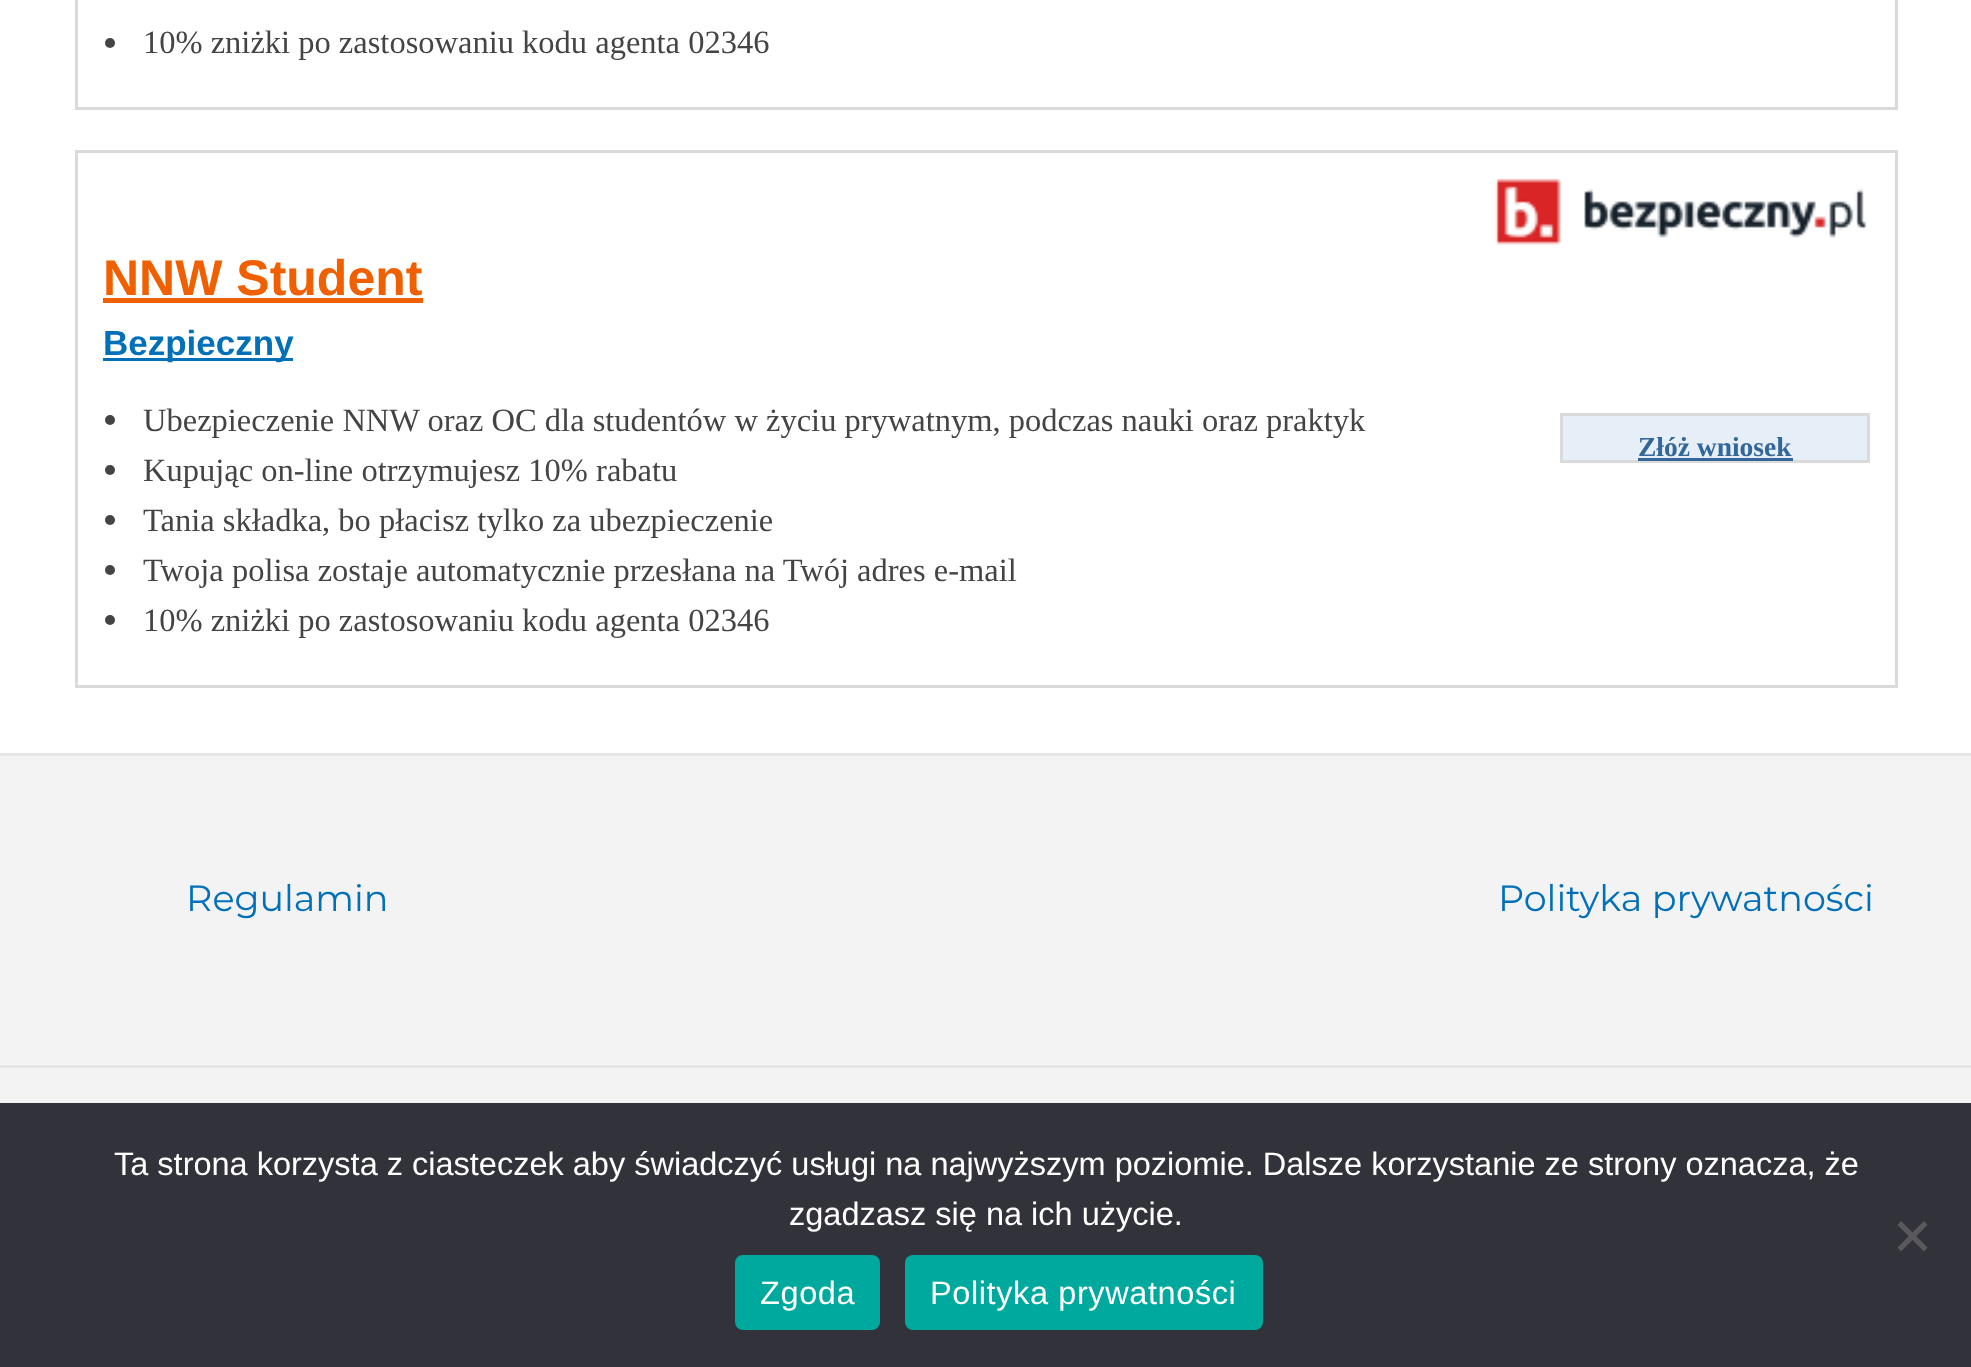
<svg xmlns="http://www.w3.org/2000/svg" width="1971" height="1367">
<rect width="100%" height="100%" fill="#fff"/>
<rect x="76.5" y="-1.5" width="1820" height="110" fill="none" stroke="#dadada" stroke-width="3"/>
<circle cx="110" cy="43" r="5" fill="#444"/>
<text x="143" y="53" style="font-family:Liberation Serif;font-size:32.5px;fill:#444">10% zniżki po zastosowaniu kodu agenta 02346</text>
<rect x="76.5" y="151.5" width="1820" height="535" fill="none" stroke="#dadada" stroke-width="3"/>
<image x="1495" y="178" width="372" height="67" href="media/1.png"/>
<text x="103" y="295" style="font-family:Liberation Sans;font-size:50px;font-weight:bold;fill:#f06000">NNW Student</text>
<rect x="103" y="298" width="320" height="5" fill="#f06000"/>
<rect x="103" y="358" width="190" height="3" fill="#0170b9"/>
<text x="103" y="355" style="font-family:Liberation Sans;font-size:35px;font-weight:bold;fill:#0170b9">Bezpieczny</text>
<circle cx="110" cy="420" r="5" fill="#444"/>
<text x="143" y="431" style="font-family:Liberation Serif;font-size:32.5px;fill:#444">Ubezpieczenie NNW oraz OC dla studentów w życiu prywatnym, podczas nauki oraz praktyk</text>
<circle cx="110" cy="470" r="5" fill="#444"/>
<text x="143" y="481" style="font-family:Liberation Serif;font-size:32.5px;fill:#444">Kupując on-line otrzymujesz 10% rabatu</text>
<circle cx="110" cy="520" r="5" fill="#444"/>
<text x="143" y="531" style="font-family:Liberation Serif;font-size:32.5px;fill:#444">Tania składka, bo płacisz tylko za ubezpieczenie</text>
<circle cx="110" cy="570" r="5" fill="#444"/>
<text x="143" y="581" style="font-family:Liberation Serif;font-size:32.5px;fill:#444">Twoja polisa zostaje automatycznie przesłana na Twój adres e-mail</text>
<circle cx="110" cy="620" r="5" fill="#444"/>
<text x="143" y="631" style="font-family:Liberation Serif;font-size:32.5px;fill:#444">10% zniżki po zastosowaniu kodu agenta 02346</text>
<rect x="1561.5" y="414.5" width="307" height="47" fill="#e6eff7" stroke="#dadada" stroke-width="3"/>
<text x="1638" y="456" style="font-family:Liberation Serif;font-size:27.5px;font-weight:bold;fill:#369">Złóż wniosek</text>
<rect x="1638" y="458" width="155" height="3" fill="#369"/>
<rect y="756" width="1971" height="309" fill="#f3f3f3"/>
<rect y="753" width="1971" height="3" fill="#e5e5e5"/>
<text x="186" y="911" style="font-family:Montserrat;font-size:36.5px;fill:#0170b9">Regulamin</text>
<text x="1498" y="911" style="font-family:Montserrat;font-size:36.5px;fill:#0170b9">Polityka prywatności</text>
<rect y="1068" width="1971" height="35" fill="#f3f3f3"/>
<rect y="1065" width="1971" height="3" fill="#e5e5e5"/>
<rect y="1103" width="1971" height="264" fill="#32323a"/>
<text x="114" y="1175" style="font-family:Liberation Sans;font-size:32.5px;fill:#fff">Ta strona korzysta z ciasteczek aby świadczyć usługi na najwyższym poziomie. Dalsze korzystanie ze strony oznacza, że</text>
<text x="789" y="1225" style="font-family:Liberation Sans;font-size:32.5px;fill:#fff">zgadzasz się na ich użycie.</text>
<path d="M1924 1221l3.5 4l-26.5 26.5l-3.5-4z" fill="#59595d"/>
<path d="M1897.5 1225l3.5-4l26.5 26.5l-3.5 4z" fill="#59595d"/>
<rect x="735" y="1255" width="145" height="75" rx="8" fill="#00a99d"/>
<text x="760" y="1304" style="font-family:Liberation Sans;font-size:32.5px;letter-spacing:0.6px;fill:#fff">Zgoda</text>
<rect x="905" y="1255" width="358" height="75" rx="8" fill="#00a99d"/>
<text x="930" y="1304" style="font-family:Liberation Sans;font-size:32.5px;letter-spacing:0.6px;fill:#fff">Polityka prywatności</text>
</svg>
